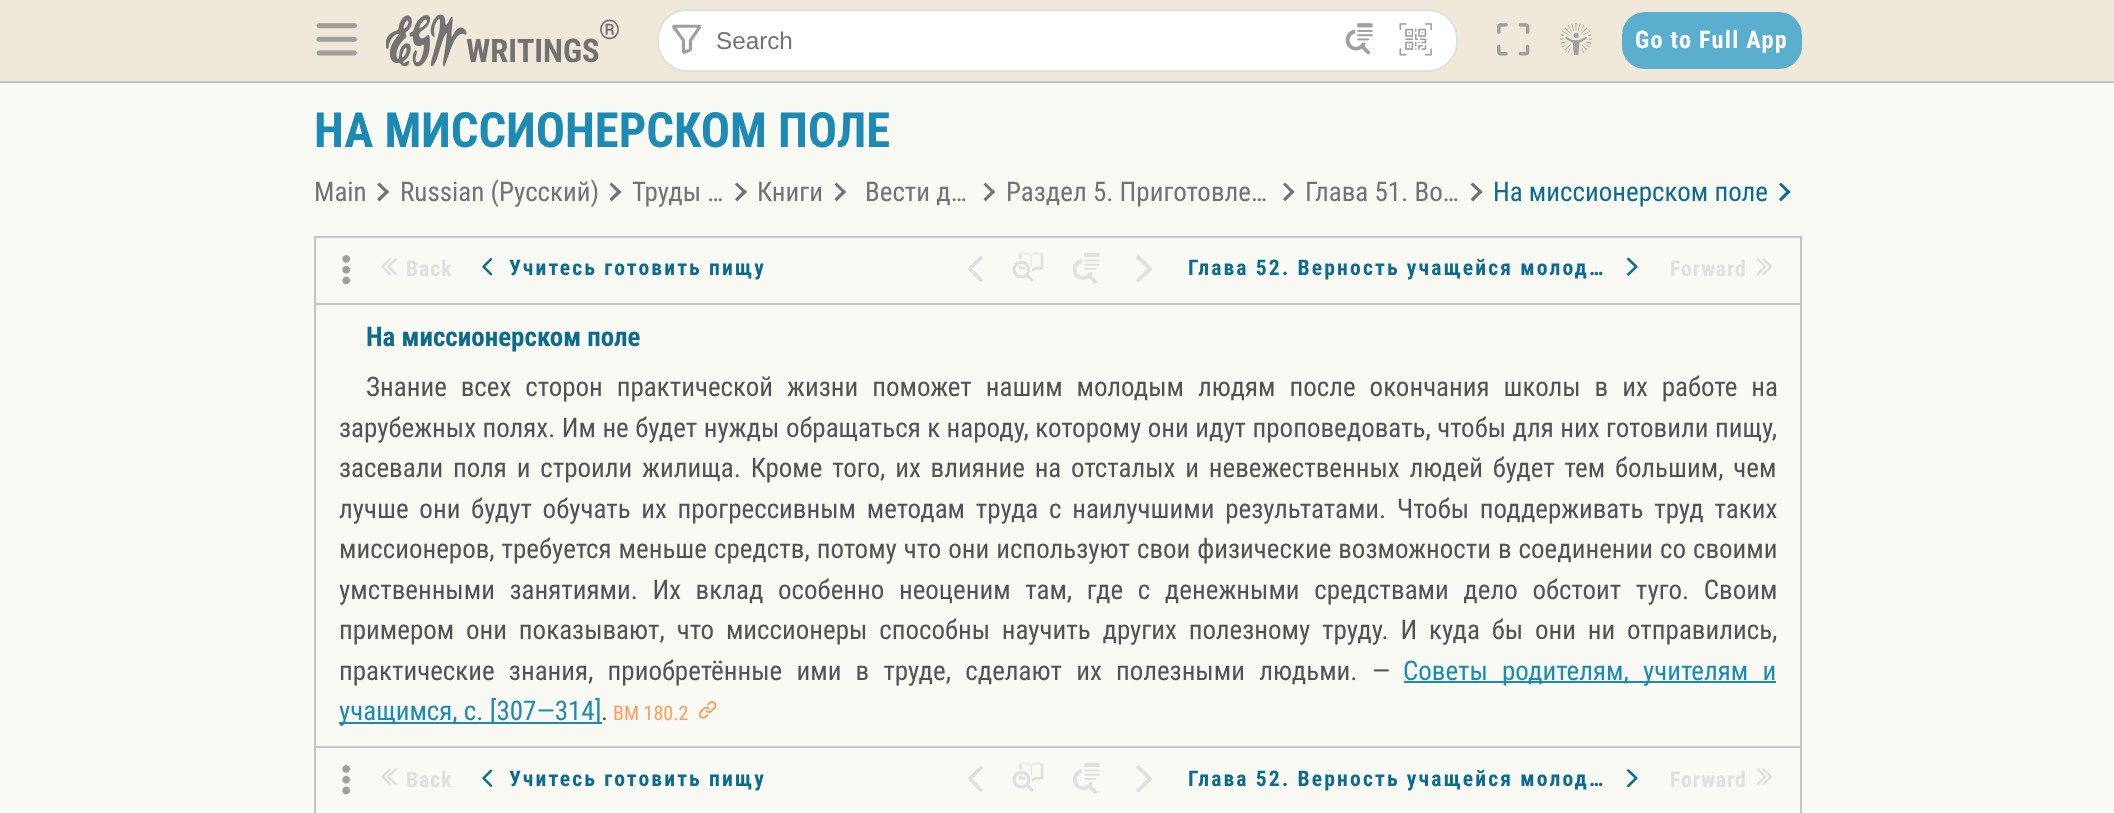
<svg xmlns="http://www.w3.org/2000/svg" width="2114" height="813">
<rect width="100%" height="100%" fill="#fafaf5"/>
<rect width="2114" height="81" fill="#f0e8d9"/>
<rect y="81" width="2114" height="2" fill="#c4c4c4"/>
<image x="316" y="23" width="41" height="33" href="media/1.png"/>
<text x="466" y="62" style="font-family:Roboto Condensed;font-size:32.5px;font-weight:bold;fill:#727272">WRITINGS</text>
<image x="386" y="14" width="81" height="53" href="media/2.png"/>
<text x="599" y="39" style="font-family:Roboto Condensed;font-size:27px;font-weight:bold;fill:#727272">®</text>
<rect x="658" y="10" width="799" height="61" rx="29" fill="#fff" stroke="#e0e0e0" stroke-width="2"/>
<image x="672" y="24" width="30" height="30" href="media/3.png"/>
<text x="716" y="49" style="font-family:Liberation Sans;font-size:24.25px;fill:#727272">Search</text>
<image x="1345" y="23" width="28" height="32" href="media/4.png"/>
<image x="1399" y="23" width="33" height="33" href="media/5.png"/>
<image x="1497" y="23" width="33" height="33" href="media/6.png"/>
<image x="1560" y="23" width="32" height="32" href="media/7.png"/>
<rect x="1623" y="13" width="178" height="55" rx="22" fill="#5aaece" stroke="#5aaece" stroke-width="2"/>
<text x="1635" y="48" style="font-family:Roboto Condensed;font-size:24.25px;font-weight:bold;letter-spacing:1.25px;fill:#fff">Go to Full App</text>
<text x="314" y="147" style="font-family:Roboto Condensed;font-size:48.6px;font-weight:bold;fill:#1c8ab3">НА МИССИОНЕРСКОМ ПОЛЕ</text>
<text x="314" y="201" style="font-family:Roboto Condensed;font-size:27px;fill:#727272">Main</text>
<path d="M377 184.5l2.5-2l9.5 9.5l-2 2z" fill="#727272"/>
<path d="M377 199l10-9.5l2 2.5l-9.5 9.5z" fill="#727272"/>
<text x="400" y="201" style="font-family:Roboto Condensed;font-size:27px;fill:#727272">Russian (Русский)</text>
<path d="M609.5 184.5l2-2l10 9.5l-2.5 2z" fill="#727272"/>
<path d="M609.5 199l9.5-9.5l2.5 2.5l-10 9.5z" fill="#727272"/>
<text x="632" y="201" style="font-family:Roboto Condensed;font-size:27px;fill:#727272">Труды …</text>
<path d="M735 184.5l2-2l10 9.5l-2.5 2z" fill="#727272"/>
<path d="M735 199l9.5-9.5l2.5 2.5l-10 9.5z" fill="#727272"/>
<text x="757" y="201" style="font-family:Roboto Condensed;font-size:27px;fill:#727272">Книги</text>
<path d="M834.5 184.5l2-2l9.5 9.5l-2 2z" fill="#727272"/>
<path d="M834.5 199l9.5-9.5l2 2.5l-9.5 9.5z" fill="#727272"/>
<text x="865" y="201" style="font-family:Roboto Condensed;font-size:27px;fill:#727272">Вести д…</text>
<path d="M983.5 184.5l2-2l9.5 9.5l-2 2z" fill="#727272"/>
<path d="M983.5 199l9.5-9.5l2 2.5l-9.5 9.5z" fill="#727272"/>
<text x="1006" y="201" style="font-family:Roboto Condensed;font-size:27px;fill:#727272">Раздел 5. Приготовле…</text>
<path d="M1283 184.5l2-2l9.5 9.5l-2 2z" fill="#727272"/>
<path d="M1283 199l9.5-9.5l2 2.5l-9.5 9.5z" fill="#727272"/>
<text x="1305" y="201" style="font-family:Roboto Condensed;font-size:27px;fill:#727272">Глава 51. Во…</text>
<path d="M1470.5 184.5l2.5-2l9.5 9.5l-2 2z" fill="#727272"/>
<path d="M1470.5 199l10-9.5l2 2.5l-9.5 9.5z" fill="#727272"/>
<text x="1493" y="201" style="font-family:Roboto Condensed;font-size:27px;fill:#0c6b8f">На миссионерском поле</text>
<path d="M1779 184.5l2-2l9.5 9.5l-2 2z" fill="#0c6b8f"/>
<path d="M1779 199l9.5-9.5l2 2.5l-9.5 9.5z" fill="#0c6b8f"/>
<rect x="315" y="237" width="1486" height="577" fill="none" stroke="#c4c4c4" stroke-width="2"/>
<rect x="315" y="303" width="1485" height="2" fill="#c4c4c4"/>
<image x="342" y="255" width="8" height="30" href="media/8.png"/>
<image x="381" y="258" width="16" height="18" href="media/9.png"/>
<text x="406" y="276" style="font-family:Roboto Condensed;font-size:21.6px;font-weight:bold;letter-spacing:1px;fill:#e0e0e0">Back</text>
<image x="482" y="258" width="11" height="18" href="media/10.png"/>
<text x="509" y="275" style="font-family:Roboto Condensed;font-size:21.6px;font-weight:bold;letter-spacing:2.15px;fill:#0c6b8f">Учитесь готовить пищу</text>
<image x="968" y="256" width="15" height="26" href="media/11.png"/>
<image x="1012" y="252" width="32" height="30" href="media/12.png"/>
<image x="1072" y="252" width="28" height="32" href="media/13.png"/>
<image x="1136" y="255" width="16" height="28" href="media/14.png"/>
<text x="1188" y="275" style="font-family:Roboto Condensed;font-size:21.6px;font-weight:bold;letter-spacing:2.15px;fill:#0c6b8f">Глава 52. Верность учащейся молод…</text>
<image x="1627" y="257" width="11" height="19" href="media/15.png"/>
<text x="1670" y="276" style="font-family:Roboto Condensed;font-size:21.6px;font-weight:bold;letter-spacing:1px;fill:#e0e0e0">Forward</text>
<image x="1756" y="258" width="16" height="18" href="media/16.png"/>
<text x="366" y="346" style="font-family:Roboto Condensed;font-size:27px;font-weight:bold;fill:#0c6b8f">На миссионерском поле</text>
<text x="366" y="396" word-spacing="7.75" style="font-family:Roboto Condensed;font-size:27px;fill:#525252">Знание всех сторон практической жизни поможет нашим молодым людям после окончания школы в их работе на</text>
<text x="339" y="437" word-spacing="0.25" style="font-family:Roboto Condensed;font-size:27px;fill:#525252">зарубежных полях. Им не будет нужды обращаться к народу, которому они идут проповедовать, чтобы для них готовили пищу,</text>
<text x="339" y="477" word-spacing="3.6" style="font-family:Roboto Condensed;font-size:27px;fill:#525252">засевали поля и строили жилища. Кроме того, их влияние на отсталых и невежественных людей будет тем большим, чем</text>
<text x="339" y="518" word-spacing="4.5" style="font-family:Roboto Condensed;font-size:27px;fill:#525252">лучше они будут обучать их прогрессивным методам труда с наилучшими результатами. Чтобы поддерживать труд таких</text>
<text x="339" y="558" word-spacing="0.75" style="font-family:Roboto Condensed;font-size:27px;fill:#525252">миссионеров, требуется меньше средств, потому что они используют свои физические возможности в соединении со своими</text>
<text x="339" y="599" word-spacing="8.4" style="font-family:Roboto Condensed;font-size:27px;fill:#525252">умственными занятиями. Их вклад особенно неоценим там, где с денежными средствами дело обстоит туго. Своим</text>
<text x="339" y="639" word-spacing="5.6" style="font-family:Roboto Condensed;font-size:27px;fill:#525252">примером они показывают, что миссионеры способны научить других полезному труду. И куда бы они ни отправились,</text>
<text x="339" y="680" word-spacing="8" style="font-family:Roboto Condensed;font-size:27px;fill:#525252">практические знания, приобретённые ими в труде, сделают их полезными людьми. —</text>
<rect x="1404" y="681" width="372" height="2" fill="#1c8ab3"/>
<text x="1403" y="680" word-spacing="8" style="font-family:Roboto Condensed;font-size:27px;fill:#1c8ab3">Советы родителям, учителям и</text>
<rect x="339" y="722" width="263" height="2" fill="#1c8ab3"/>
<text x="339" y="720" style="font-family:Roboto Condensed;font-size:27px;fill:#1c8ab3">учащимся, c. [307—314]</text>
<text x="601" y="720" style="font-family:Roboto Condensed;font-size:27px;fill:#525252">.</text>
<text x="613" y="720" style="font-family:Roboto Condensed;font-size:20px;fill:#ff9d5b">ВМ 180.2</text>
<image x="698" y="701" width="19" height="18" href="media/17.png"/>
<rect x="315" y="746" width="1485" height="2" fill="#c4c4c4"/>
<image x="342" y="765" width="8" height="30" href="media/8.png"/>
<image x="381" y="768" width="16" height="18" href="media/9.png"/>
<text x="406" y="787" style="font-family:Roboto Condensed;font-size:21.6px;font-weight:bold;letter-spacing:1px;fill:#e0e0e0">Back</text>
<image x="482" y="769" width="11" height="18" href="media/18.png"/>
<text x="509" y="786" style="font-family:Roboto Condensed;font-size:21.6px;font-weight:bold;letter-spacing:2.15px;fill:#0c6b8f">Учитесь готовить пищу</text>
<image x="968" y="766" width="15" height="26" href="media/11.png"/>
<image x="1012" y="762" width="32" height="30" href="media/12.png"/>
<image x="1072" y="762" width="28" height="32" href="media/13.png"/>
<image x="1136" y="765" width="16" height="28" href="media/14.png"/>
<text x="1188" y="786" style="font-family:Roboto Condensed;font-size:21.6px;font-weight:bold;letter-spacing:2.15px;fill:#0c6b8f">Глава 52. Верность учащейся молод…</text>
<image x="1627" y="769" width="11" height="19" href="media/19.png"/>
<text x="1670" y="787" style="font-family:Roboto Condensed;font-size:21.6px;font-weight:bold;letter-spacing:1px;fill:#e0e0e0">Forward</text>
<image x="1756" y="768" width="16" height="18" href="media/16.png"/>
</svg>
